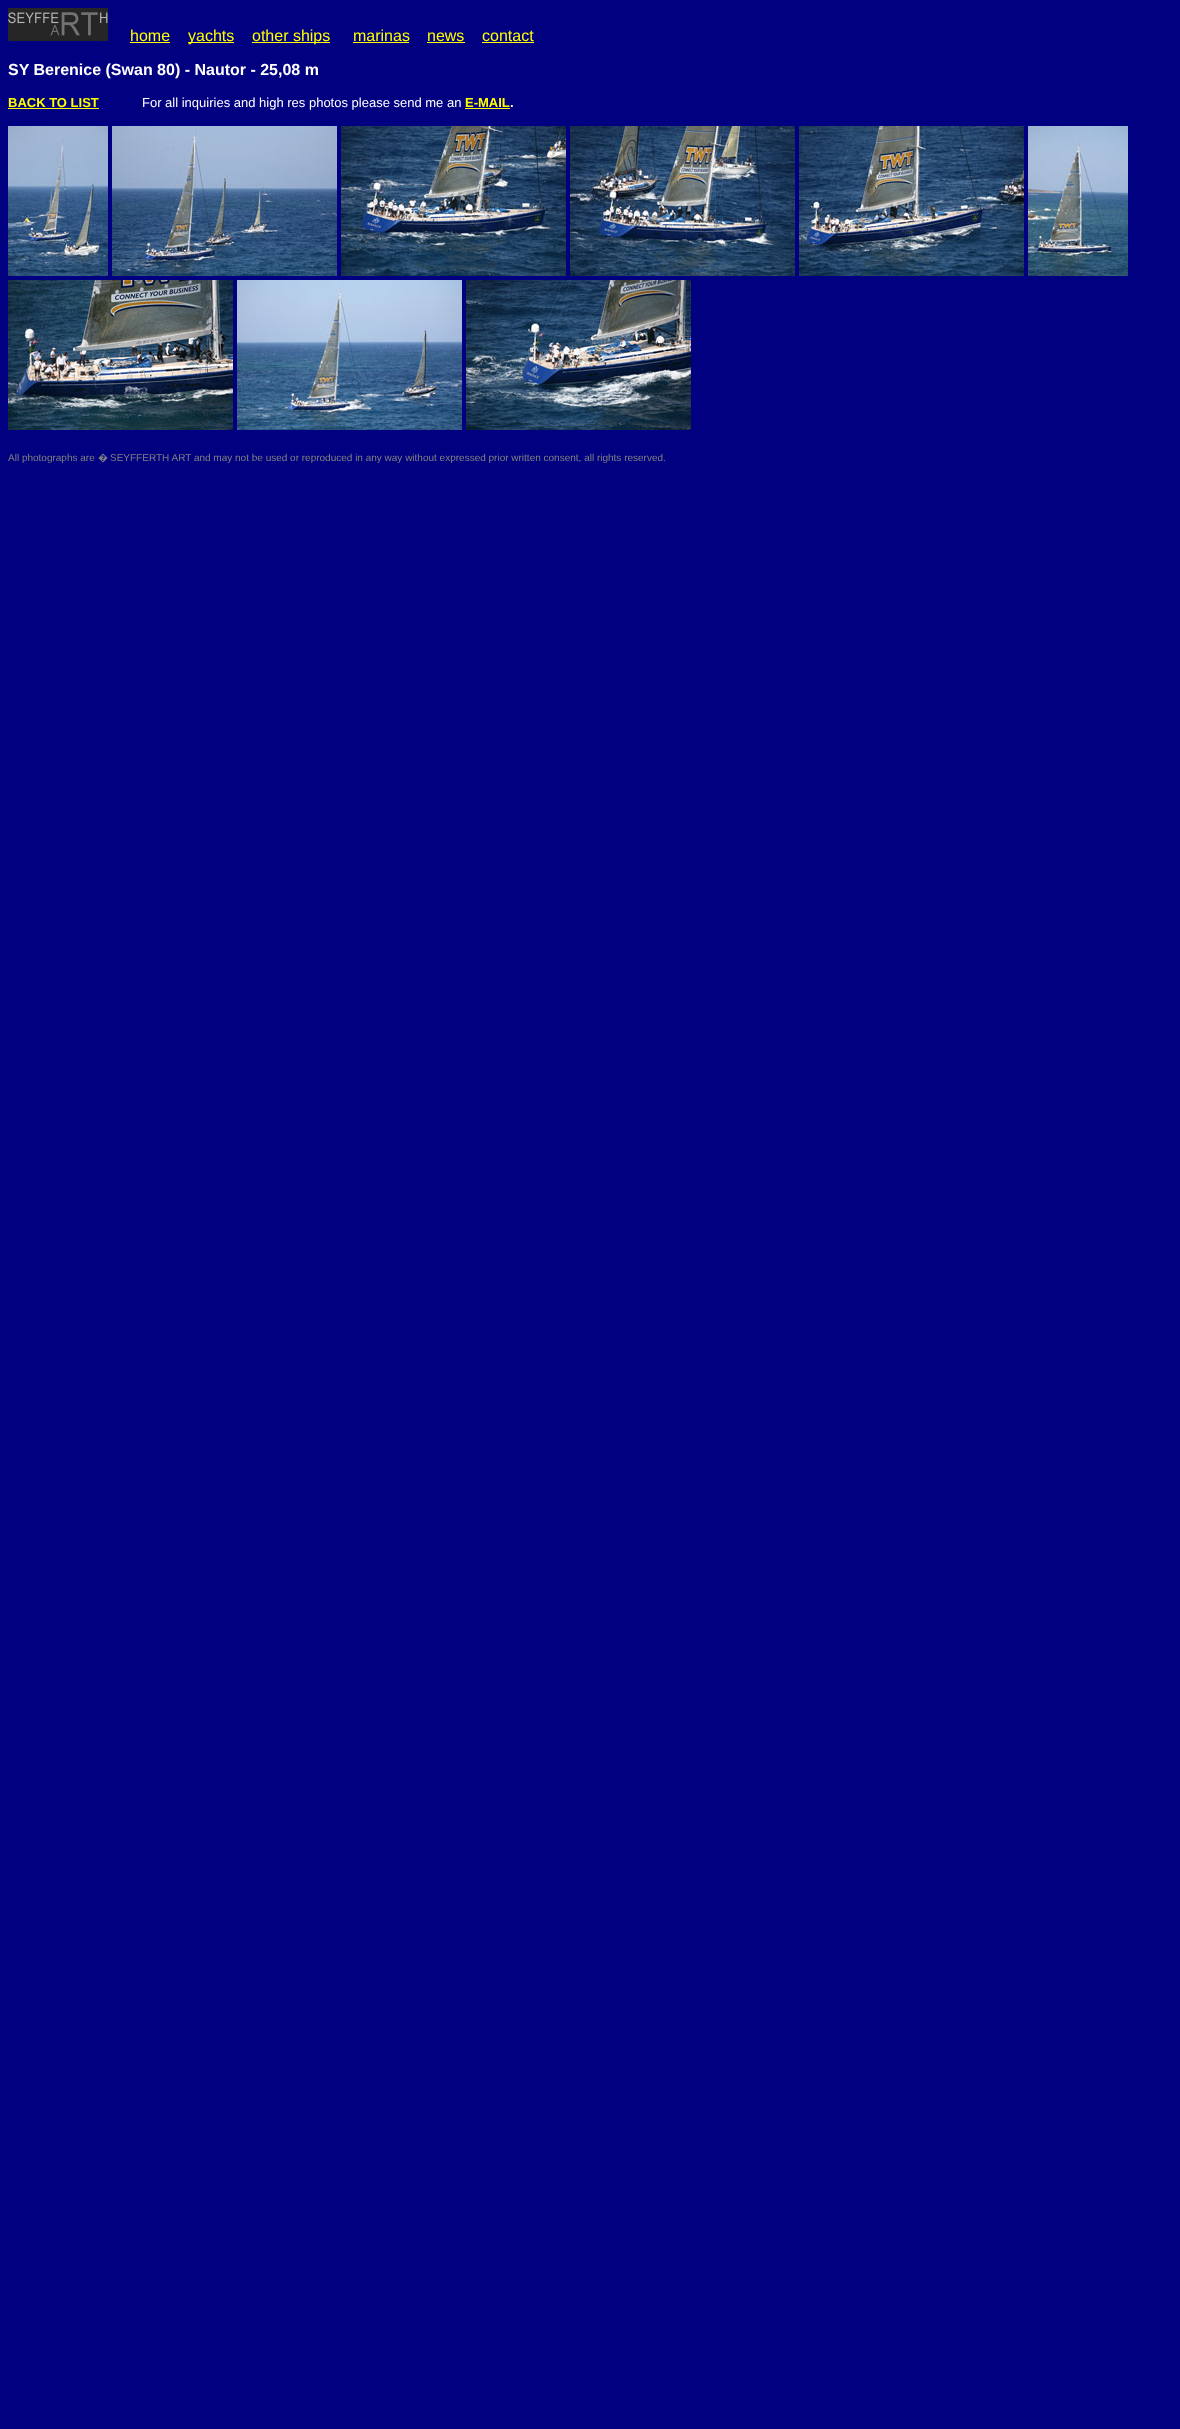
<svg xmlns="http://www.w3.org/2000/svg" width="1180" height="2429">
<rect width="100%" height="100%" fill="#000080"/>
<image x="8" y="8" width="100" height="33" href="media/1.png"/>
<text x="130" y="41" style="font-family:Liberation Sans;font-size:16px;fill:#ff0">home</text>
<rect x="130" y="42" width="40" height="1" fill="#ff0"/>
<rect x="188" y="42" width="46" height="1" fill="#ff0"/>
<text x="188" y="41" style="font-family:Liberation Sans;font-size:16px;fill:#ff0">yachts</text>
<rect x="252" y="42" width="78" height="1" fill="#ff0"/>
<text x="252" y="41" style="font-family:Liberation Sans;font-size:16px;fill:#ff0">other ships</text>
<text x="353" y="41" style="font-family:Liberation Sans;font-size:16px;fill:#ff0">marinas</text>
<rect x="353" y="42" width="56" height="1" fill="#ff0"/>
<text x="427" y="41" style="font-family:Liberation Sans;font-size:16px;fill:#ff0">news</text>
<rect x="427" y="42" width="38" height="1" fill="#ff0"/>
<text x="482" y="41" style="font-family:Liberation Sans;font-size:16px;fill:#ff0">contact</text>
<rect x="482" y="42" width="52" height="1" fill="#ff0"/>
<text x="8" y="75" style="font-family:Liberation Sans;font-size:16px;font-weight:bold;fill:#fff">SY Berenice (Swan 80) - Nautor - 25,08 m</text>
<text x="8" y="107" style="font-family:Liberation Sans;font-size:13px;font-weight:bold;fill:#ff0">BACK TO LIST</text>
<rect x="8" y="108" width="91" height="1" fill="#ff0"/>
<text x="142" y="107" style="font-family:Liberation Sans;font-size:13px;fill:#fff">For all inquiries and high res photos please send me an</text>
<text x="465" y="107" style="font-family:Liberation Sans;font-size:13px;font-weight:bold;fill:#ff0">E-MAIL</text>
<text x="510" y="107" style="font-family:Liberation Sans;font-size:13px;font-weight:bold;fill:#fff">.</text>
<rect x="465" y="108" width="45" height="1" fill="#ff0"/>
<image x="8" y="126" width="100" height="150" href="media/2.png"/>
<image x="112" y="126" width="225" height="150" href="media/3.png"/>
<image x="341" y="126" width="225" height="150" href="media/4.png"/>
<image x="570" y="126" width="225" height="150" href="media/5.png"/>
<image x="799" y="126" width="225" height="150" href="media/6.png"/>
<image x="1028" y="126" width="100" height="150" href="media/7.png"/>
<image x="8" y="280" width="225" height="150" href="media/8.png"/>
<image x="237" y="280" width="225" height="150" href="media/9.png"/>
<image x="466" y="280" width="225" height="150" href="media/10.png"/>
<text x="8" y="461" style="font-family:Liberation Sans;font-size:10px;fill:#808080">All photographs are</text>
<text x="98" y="461" style="font-family:Noto Sans;font-size:10px;fill:#808080">�</text>
<text x="110" y="461" style="font-family:Liberation Sans;font-size:10px;fill:#808080">SEYFFERTH ART and may not be used or reproduced in any way without expressed prior written consent, all rights reserved.</text>
</svg>
